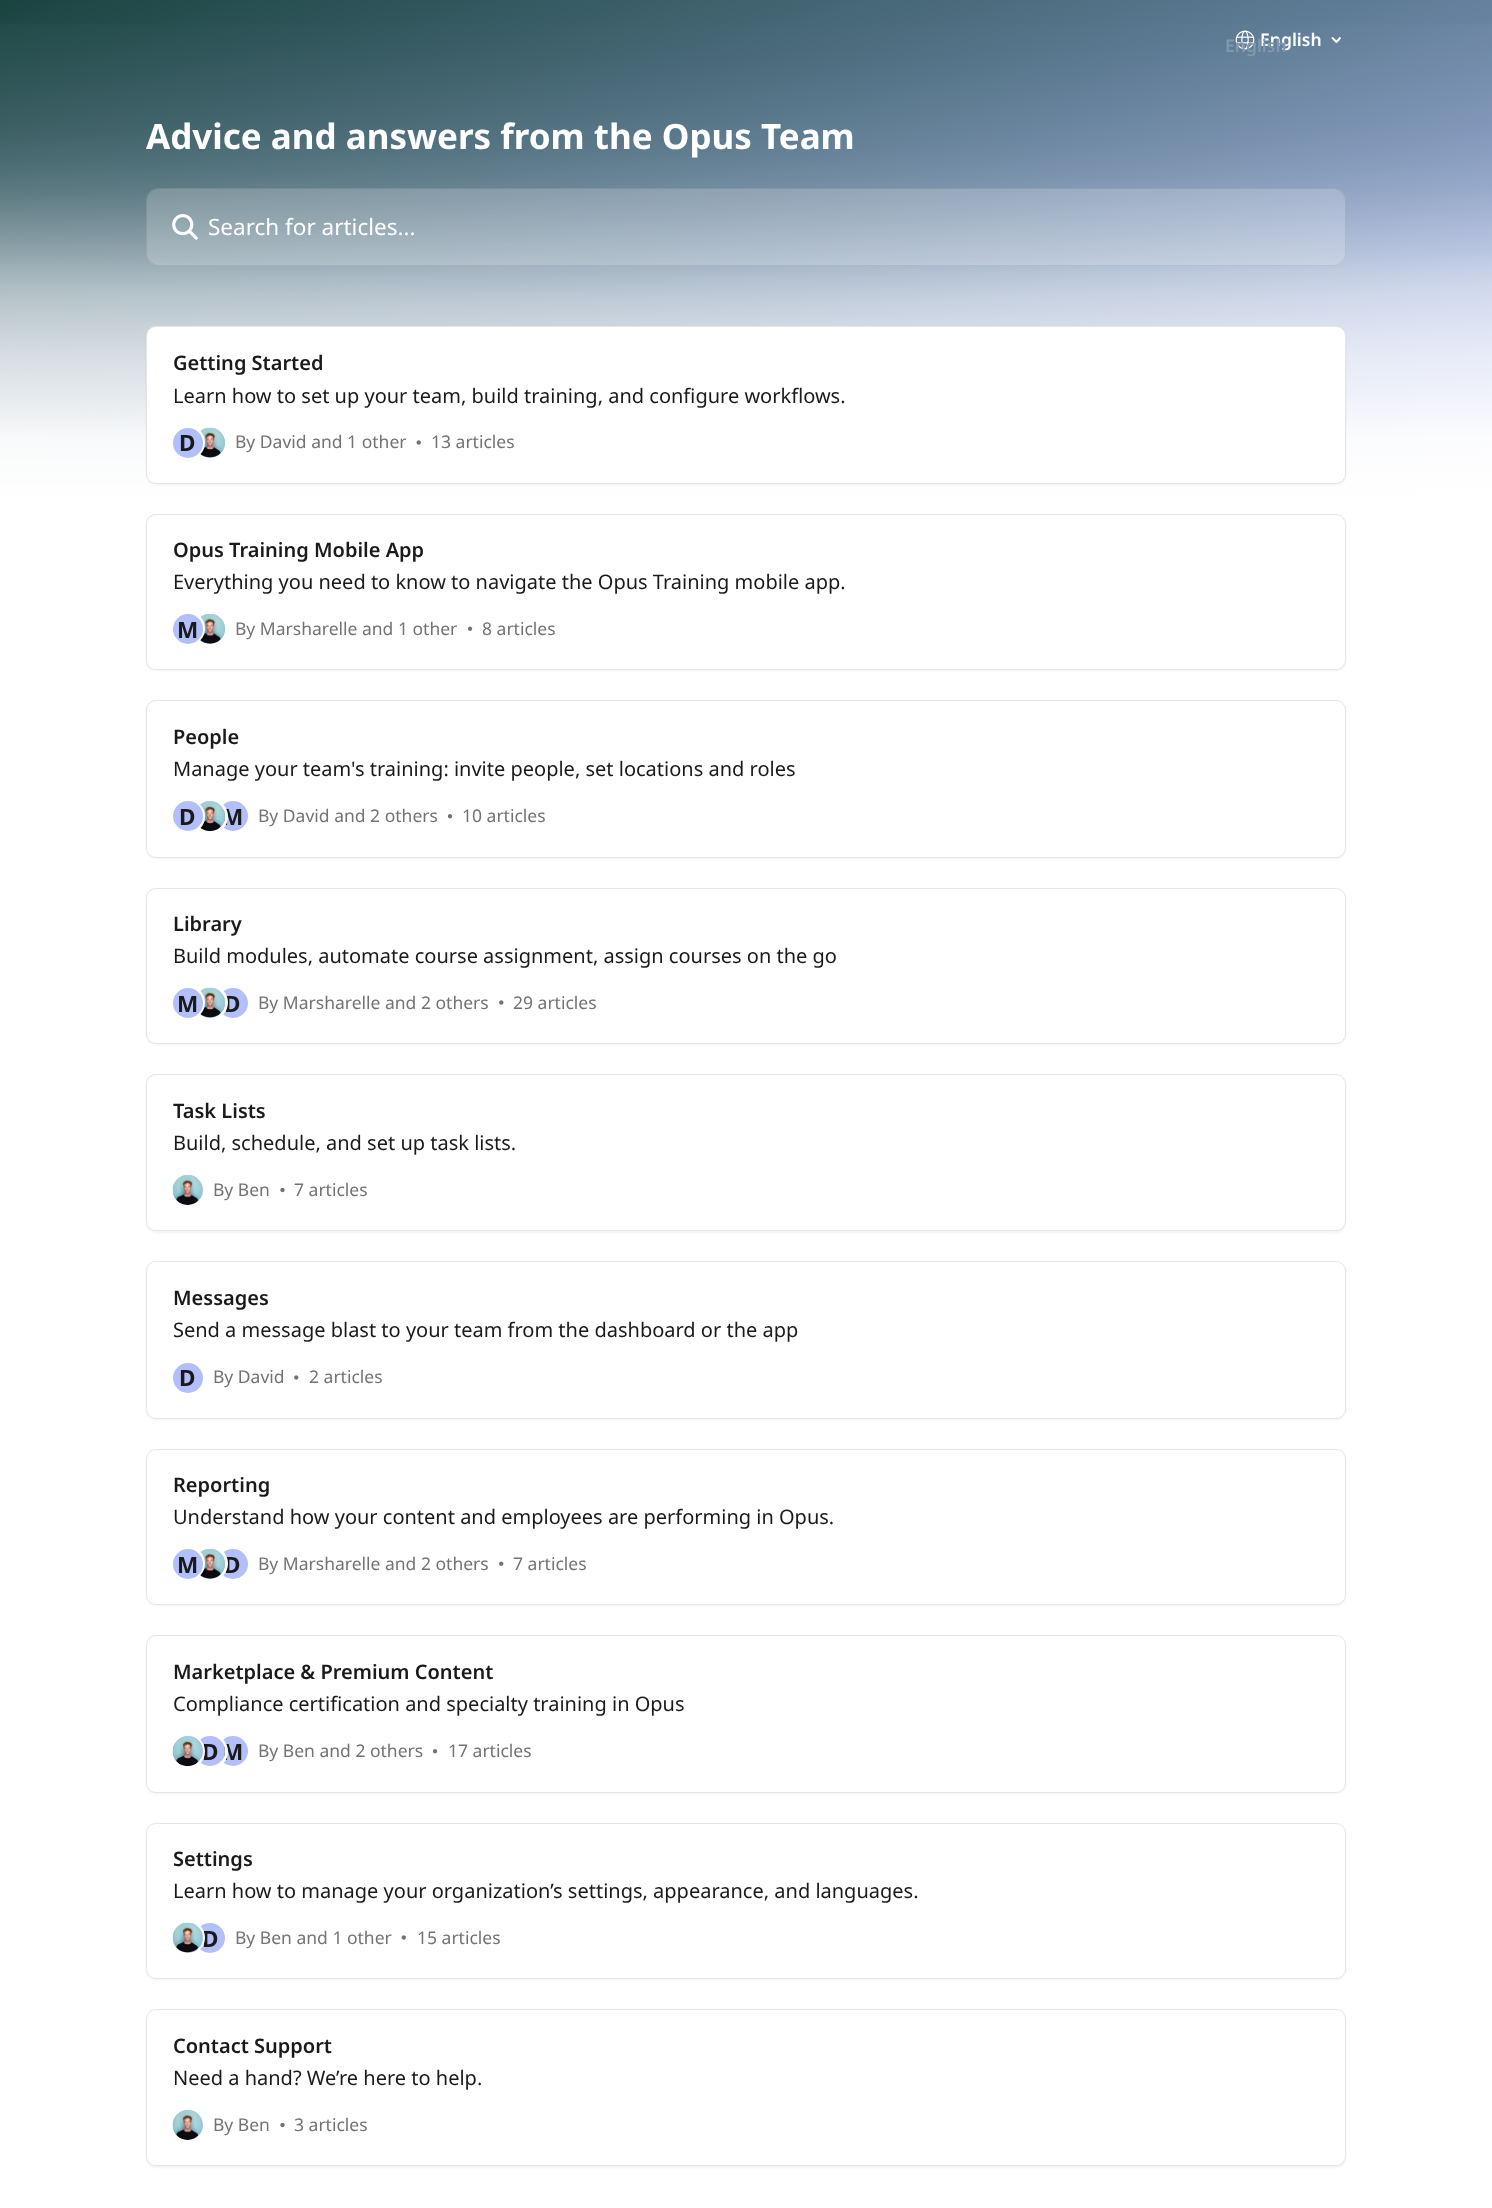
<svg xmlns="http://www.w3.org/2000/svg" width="1492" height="2208">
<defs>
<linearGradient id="g1" gradientUnits="userSpaceOnUse" x1="592" y1="-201" x2="900" y2="707"><stop offset="0" stop-color="#1a4440"/><stop offset="1" stop-color="#b0bdfa"/></linearGradient>
<radialGradient id="g2" gradientUnits="userSpaceOnUse" cx="0" cy="0" r="1" gradientTransform="matrix(4976 0 0 506 746 0)"><stop offset="0" stop-color="#fff" stop-opacity="0"/><stop offset="0.12" stop-color="#fff" stop-opacity="0.01"/><stop offset="0.21" stop-color="#fff" stop-opacity="0.04"/><stop offset="0.29" stop-color="#fff" stop-opacity="0.07"/><stop offset="0.35" stop-color="#fff" stop-opacity="0.12"/><stop offset="0.4" stop-color="#fff" stop-opacity="0.18"/><stop offset="0.44" stop-color="#fff" stop-opacity="0.25"/><stop offset="0.48" stop-color="#fff" stop-opacity="0.33"/><stop offset="0.52" stop-color="#fff" stop-opacity="0.41"/><stop offset="0.55" stop-color="#fff" stop-opacity="0.49"/><stop offset="0.59" stop-color="#fff" stop-opacity="0.58"/><stop offset="0.65" stop-color="#fff" stop-opacity="0.67"/><stop offset="0.71" stop-color="#fff" stop-opacity="0.76"/><stop offset="0.79" stop-color="#fff" stop-opacity="0.84"/><stop offset="0.88" stop-color="#fff" stop-opacity="0.96"/><stop offset="1" stop-color="#fff"/></radialGradient>
</defs>
<rect width="100%" height="100%" fill="#fff"/>
<rect width="1492" height="496" fill="url(#g1)"/>
<rect y="24" width="1492" height="472" fill="url(#g2)"/>
<image x="1235" y="30" width="20" height="20" href="media/1.png"/>
<text x="1260" y="46" style="font-family:Noto Sans;font-size:17.5px;font-weight:600;fill:#fff">English</text>
<text x="1225" y="52" style="font-family:Noto Sans;font-size:17.5px;font-weight:600;fill:#8298ad">English</text>
<path d="M1332.5 38l4 4l3.5-4" fill="none" stroke="#fff" stroke-width="1.9" stroke-linecap="round" stroke-linejoin="round"/>
<text x="146" y="149" style="font-family:Noto Sans;font-size:35px;font-weight:bold;fill:#fff">Advice and answers from the Opus Team</text>
<rect x="146" y="188" width="1200" height="78" rx="13" fill="#ffffff33"/>
<rect x="146.5" y="188.5" width="1199" height="77" rx="12.5" fill="none" stroke="#00000014"/>
<image x="172" y="214" width="26" height="26" href="media/2.png"/>
<text x="208" y="235" style="font-family:Noto Sans;font-size:22.5px;fill:#fff">Search for articles...</text>
<rect x="146" y="328" width="1200" height="157" rx="10" fill="#0000000d" filter="blur(1px)"/>
<rect x="146.5" y="326.5" width="1199" height="157" rx="9.5" fill="#fff" stroke="#e6e6e6"/>
<text x="173" y="370" style="font-family:Noto Sans;font-size:20px;font-weight:600;fill:#1a1a1a">Getting Started</text>
<text x="173" y="403" style="font-family:Noto Sans;font-size:20px;fill:#1a1a1a">Learn how to set up your team, build training, and configure workflows.</text>
<circle cx="210" cy="443" r="15" fill="#b2bffa"/>
<image x="198" y="427" width="27" height="31" href="media/3.png"/>
<circle cx="187.5" cy="442.5" r="16" fill="none" stroke="#fff" stroke-width="3"/>
<circle cx="188" cy="443" r="15" fill="#b2bffa"/>
<text x="179" y="451" style="font-family:Noto Sans;font-size:22.5px;font-weight:bold;fill:#1a1a1a">D</text>
<text x="235" y="448" style="font-family:Noto Sans;font-size:17.5px;fill:#737373">By David and 1 other</text>
<image x="416" y="440" width="5" height="5" href="media/4.png"/>
<text x="431" y="448" style="font-family:Noto Sans;font-size:17.5px;fill:#737373">13 articles</text>
<rect x="146" y="515" width="1200" height="156" rx="10" fill="#0000000d" filter="blur(1px)"/>
<rect x="146.5" y="514.5" width="1199" height="155" rx="9.5" fill="#fff" stroke="#e6e6e6"/>
<text x="173" y="557" style="font-family:Noto Sans;font-size:20px;font-weight:600;fill:#1a1a1a">Opus Training Mobile App</text>
<text x="173" y="589" style="font-family:Noto Sans;font-size:20px;fill:#1a1a1a">Everything you need to know to navigate the Opus Training mobile app.</text>
<circle cx="210" cy="629" r="15" fill="#b2bffa"/>
<image x="198" y="613" width="27" height="31" href="media/5.png"/>
<circle cx="187.5" cy="628.5" r="16" fill="none" stroke="#fff" stroke-width="3"/>
<circle cx="188" cy="629" r="15" fill="#b2bffa"/>
<text x="177" y="638" style="font-family:Noto Sans;font-size:22.5px;font-weight:bold;fill:#1a1a1a">M</text>
<text x="235" y="635" style="font-family:Noto Sans;font-size:17.5px;fill:#737373">By Marsharelle and 1 other</text>
<image x="468" y="626" width="5" height="5" href="media/6.png"/>
<text x="482" y="635" style="font-family:Noto Sans;font-size:17.5px;fill:#737373">8 articles</text>
<rect x="146" y="701" width="1200" height="158" rx="10" fill="#0000000d" filter="blur(1px)"/>
<rect x="146.5" y="700.5" width="1199" height="157" rx="9.5" fill="#fff" stroke="#e6e6e6"/>
<text x="173" y="744" style="font-family:Noto Sans;font-size:20px;font-weight:600;fill:#1a1a1a">People</text>
<text x="173" y="776" style="font-family:Noto Sans;font-size:20px;fill:#1a1a1a">Manage your team's training: invite people, set locations and roles</text>
<circle cx="233" cy="816" r="15" fill="#b2bffa"/>
<text x="222" y="825" style="font-family:Noto Sans;font-size:22.5px;font-weight:bold;fill:#1a1a1a">M</text>
<circle cx="210.5" cy="816.5" r="16" fill="none" stroke="#fff" stroke-width="3"/>
<circle cx="210" cy="816" r="15" fill="#b2bffa"/>
<image x="198" y="801" width="27" height="31" href="media/7.png"/>
<circle cx="187.5" cy="816.5" r="16" fill="none" stroke="#fff" stroke-width="3"/>
<circle cx="188" cy="816" r="15" fill="#b2bffa"/>
<text x="179" y="825" style="font-family:Noto Sans;font-size:22.5px;font-weight:bold;fill:#1a1a1a">D</text>
<text x="258" y="822" style="font-family:Noto Sans;font-size:17.5px;fill:#737373">By David and 2 others</text>
<image x="448" y="814" width="5" height="5" href="media/8.png"/>
<text x="462" y="822" style="font-family:Noto Sans;font-size:17.5px;fill:#737373">10 articles</text>
<rect x="146" y="889" width="1200" height="156" rx="10" fill="#0000000d" filter="blur(1px)"/>
<rect x="146.5" y="888.5" width="1199" height="155" rx="9.5" fill="#fff" stroke="#e6e6e6"/>
<text x="173" y="931" style="font-family:Noto Sans;font-size:20px;font-weight:600;fill:#1a1a1a">Library</text>
<text x="173" y="963" style="font-family:Noto Sans;font-size:20px;fill:#1a1a1a">Build modules, automate course assignment, assign courses on the go</text>
<circle cx="233" cy="1003" r="15" fill="#b2bffa"/>
<text x="224" y="1012" style="font-family:Noto Sans;font-size:22.5px;font-weight:bold;fill:#1a1a1a">D</text>
<circle cx="210.5" cy="1002.5" r="16" fill="none" stroke="#fff" stroke-width="3"/>
<circle cx="210" cy="1003" r="15" fill="#b2bffa"/>
<image x="198" y="987" width="27" height="31" href="media/9.png"/>
<circle cx="187.5" cy="1002.5" r="16" fill="none" stroke="#fff" stroke-width="3"/>
<circle cx="188" cy="1003" r="15" fill="#b2bffa"/>
<text x="177" y="1012" style="font-family:Noto Sans;font-size:22.5px;font-weight:bold;fill:#1a1a1a">M</text>
<text x="258" y="1009" style="font-family:Noto Sans;font-size:17.5px;fill:#737373">By Marsharelle and 2 others</text>
<image x="499" y="1000" width="5" height="5" href="media/10.png"/>
<text x="513" y="1009" style="font-family:Noto Sans;font-size:17.5px;fill:#737373">29 articles</text>
<rect x="146" y="1075" width="1200" height="158" rx="10" fill="#0000000d" filter="blur(1px)"/>
<rect x="146.5" y="1074.5" width="1199" height="156" rx="9.5" fill="#fff" stroke="#e6e6e6"/>
<text x="173" y="1118" style="font-family:Noto Sans;font-size:20px;font-weight:600;fill:#1a1a1a">Task Lists</text>
<text x="173" y="1150" style="font-family:Noto Sans;font-size:20px;fill:#1a1a1a">Build, schedule, and set up task lists.</text>
<circle cx="188" cy="1190" r="15" fill="#b2bffa"/>
<image x="172" y="1175" width="31" height="30" href="media/11.png"/>
<text x="213" y="1196" style="font-family:Noto Sans;font-size:17.5px;fill:#737373">By Ben</text>
<image x="280" y="1188" width="5" height="5" href="media/12.png"/>
<text x="294" y="1196" style="font-family:Noto Sans;font-size:17.5px;fill:#737373">7 articles</text>
<rect x="146" y="1263" width="1200" height="157" rx="10" fill="#0000000d" filter="blur(1px)"/>
<rect x="146.5" y="1261.5" width="1199" height="157" rx="9.5" fill="#fff" stroke="#e6e6e6"/>
<text x="173" y="1305" style="font-family:Noto Sans;font-size:20px;font-weight:600;fill:#1a1a1a">Messages</text>
<text x="173" y="1337" style="font-family:Noto Sans;font-size:20px;fill:#1a1a1a">Send a message blast to your team from the dashboard or the app</text>
<circle cx="188" cy="1378" r="15" fill="#b2bffa"/>
<text x="179" y="1386" style="font-family:Noto Sans;font-size:22.5px;font-weight:bold;fill:#1a1a1a">D</text>
<text x="213" y="1383" style="font-family:Noto Sans;font-size:17.5px;fill:#737373">By David</text>
<image x="294" y="1375" width="5" height="5" href="media/10.png"/>
<text x="309" y="1383" style="font-family:Noto Sans;font-size:17.5px;fill:#737373">2 articles</text>
<rect x="146" y="1450" width="1200" height="156" rx="10" fill="#0000000d" filter="blur(1px)"/>
<rect x="146.5" y="1449.5" width="1199" height="155" rx="9.5" fill="#fff" stroke="#e6e6e6"/>
<text x="173" y="1492" style="font-family:Noto Sans;font-size:20px;font-weight:600;fill:#1a1a1a">Reporting</text>
<text x="173" y="1524" style="font-family:Noto Sans;font-size:20px;fill:#1a1a1a">Understand how your content and employees are performing in Opus.</text>
<circle cx="233" cy="1564" r="15" fill="#b2bffa"/>
<text x="224" y="1573" style="font-family:Noto Sans;font-size:22.5px;font-weight:bold;fill:#1a1a1a">D</text>
<circle cx="210.5" cy="1563.5" r="16" fill="none" stroke="#fff" stroke-width="3"/>
<circle cx="210" cy="1564" r="15" fill="#b2bffa"/>
<image x="198" y="1548" width="27" height="31" href="media/13.png"/>
<circle cx="187.5" cy="1563.5" r="16" fill="none" stroke="#fff" stroke-width="3"/>
<circle cx="188" cy="1564" r="15" fill="#b2bffa"/>
<text x="177" y="1573" style="font-family:Noto Sans;font-size:22.5px;font-weight:bold;fill:#1a1a1a">M</text>
<text x="258" y="1570" style="font-family:Noto Sans;font-size:17.5px;fill:#737373">By Marsharelle and 2 others</text>
<image x="499" y="1561" width="5" height="5" href="media/14.png"/>
<text x="513" y="1570" style="font-family:Noto Sans;font-size:17.5px;fill:#737373">7 articles</text>
<rect x="146" y="1636" width="1200" height="158" rx="10" fill="#0000000d" filter="blur(1px)"/>
<rect x="146.5" y="1635.5" width="1199" height="157" rx="9.5" fill="#fff" stroke="#e6e6e6"/>
<text x="173" y="1679" style="font-family:Noto Sans;font-size:20px;font-weight:600;fill:#1a1a1a">Marketplace &amp; Premium Content</text>
<text x="173" y="1711" style="font-family:Noto Sans;font-size:20px;fill:#1a1a1a">Compliance certification and specialty training in Opus</text>
<circle cx="233" cy="1751" r="15" fill="#b2bffa"/>
<text x="222" y="1760" style="font-family:Noto Sans;font-size:22.5px;font-weight:bold;fill:#1a1a1a">M</text>
<circle cx="210.5" cy="1751.5" r="16" fill="none" stroke="#fff" stroke-width="3"/>
<circle cx="210" cy="1751" r="15" fill="#b2bffa"/>
<text x="202" y="1760" style="font-family:Noto Sans;font-size:22.5px;font-weight:bold;fill:#1a1a1a">D</text>
<circle cx="187.5" cy="1751.5" r="16" fill="none" stroke="#fff" stroke-width="3"/>
<circle cx="188" cy="1751" r="15" fill="#b2bffa"/>
<image x="172" y="1736" width="31" height="31" href="media/15.png"/>
<text x="258" y="1757" style="font-family:Noto Sans;font-size:17.5px;fill:#737373">By Ben and 2 others</text>
<image x="433" y="1749" width="5" height="5" href="media/8.png"/>
<text x="448" y="1757" style="font-family:Noto Sans;font-size:17.5px;fill:#737373">17 articles</text>
<rect x="146" y="1824" width="1200" height="156" rx="10" fill="#0000000d" filter="blur(1px)"/>
<rect x="146.5" y="1823.5" width="1199" height="155" rx="9.5" fill="#fff" stroke="#e6e6e6"/>
<text x="173" y="1866" style="font-family:Noto Sans;font-size:20px;font-weight:600;fill:#1a1a1a">Settings</text>
<text x="173" y="1898" style="font-family:Noto Sans;font-size:20px;fill:#1a1a1a">Learn how to manage your organization’s settings, appearance, and languages.</text>
<circle cx="210" cy="1938" r="15" fill="#b2bffa"/>
<text x="202" y="1947" style="font-family:Noto Sans;font-size:22.5px;font-weight:bold;fill:#1a1a1a">D</text>
<circle cx="187.5" cy="1937.5" r="16" fill="none" stroke="#fff" stroke-width="3"/>
<circle cx="188" cy="1938" r="15" fill="#b2bffa"/>
<image x="172" y="1922" width="31" height="31" href="media/16.png"/>
<text x="235" y="1944" style="font-family:Noto Sans;font-size:17.5px;fill:#737373">By Ben and 1 other</text>
<image x="401" y="1935" width="5" height="5" href="media/4.png"/>
<text x="417" y="1944" style="font-family:Noto Sans;font-size:17.5px;fill:#737373">15 articles</text>
<rect x="146" y="2010" width="1200" height="158" rx="10" fill="#0000000d" filter="blur(1px)"/>
<rect x="146.5" y="2009.5" width="1199" height="156" rx="9.5" fill="#fff" stroke="#e6e6e6"/>
<text x="173" y="2053" style="font-family:Noto Sans;font-size:20px;font-weight:600;fill:#1a1a1a">Contact Support</text>
<text x="173" y="2085" style="font-family:Noto Sans;font-size:20px;fill:#1a1a1a">Need a hand? We’re here to help.</text>
<circle cx="188" cy="2125" r="15" fill="#b2bffa"/>
<image x="172" y="2110" width="31" height="30" href="media/11.png"/>
<text x="213" y="2131" style="font-family:Noto Sans;font-size:17.5px;fill:#737373">By Ben</text>
<image x="280" y="2123" width="5" height="5" href="media/12.png"/>
<text x="294" y="2131" style="font-family:Noto Sans;font-size:17.5px;fill:#737373">3 articles</text>
</svg>
